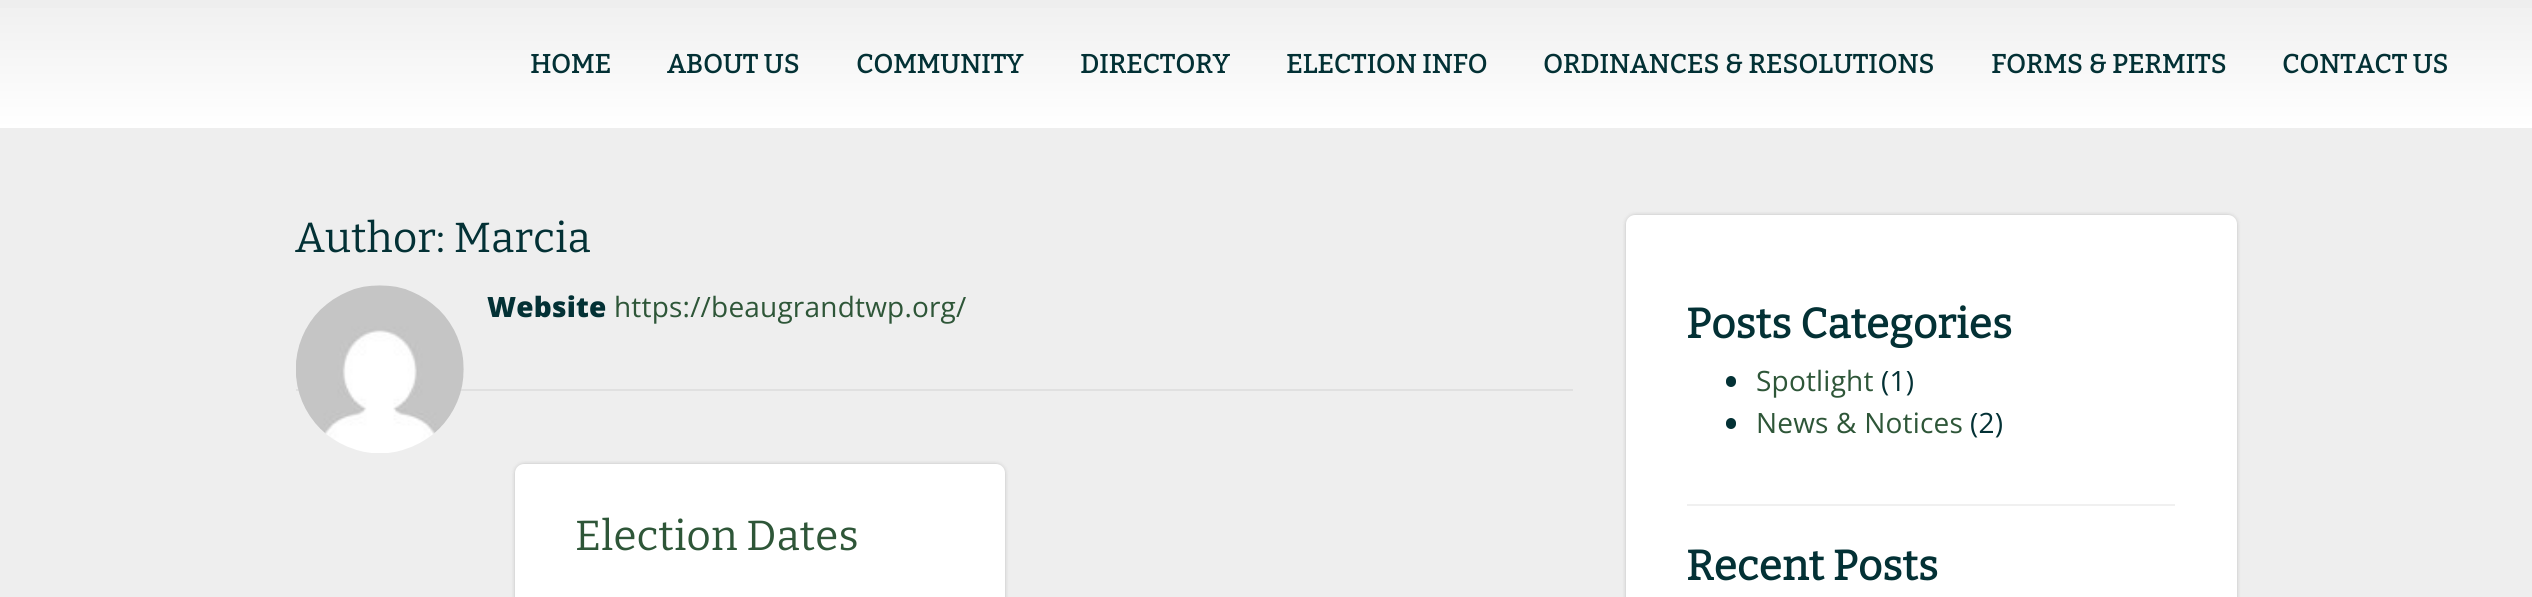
import math
import cairo

surface = cairo.ImageSurface(cairo.FORMAT_RGB24, 2532, 597)
ctx = cairo.Context(surface)
options = cairo.FontOptions()
options.set_hint_metrics(cairo.HINT_METRICS_OFF)
options.set_hint_style(cairo.HINT_STYLE_NONE)
ctx.set_font_options(options)
ctx.set_miter_limit(4)


def set_color(code):
    ctx.set_source_rgb(*(v / 255 for v in bytes.fromhex(code[-6:])))


def draw_spaced(x, y, s, letter, word):
    ctx.move_to(x, y)
    for ch in s:
        ctx.show_text(ch)
        ctx.rel_move_to(letter + word * (ch == ' '), 0)


def fill_rect(x, y, w, h, color):
    set_color(color)
    ctx.rectangle(x, y, w, h)
    ctx.fill()


def rounded_rect(x, y, w, h, r):
    ctx.new_sub_path()
    for i, (u, v) in enumerate([(x + w - r, y + h - r), (x + r, y + h - r), (x + r, y + r), (x + w - r, y + r)]):
        ctx.arc(u, v, r, i * math.pi / 2, (i + 1) * math.pi / 2)
    ctx.close_path()


def draw_shadow(x, y, w, h, r, blur, alpha):
    ctx.push_group_with_content(cairo.CONTENT_ALPHA)
    ctx.set_operator(cairo.OPERATOR_SOURCE)
    for i in range(15, -16, -2):
        e = blur * i / 6
        if min(w, h) + 2 * e > 0:
            ctx.set_source_rgba(0, 0, 0, alpha * math.erfc((i - 1) / 8.5) / 2)
            rounded_rect(x - e, y - e, w + 2 * e, h + 2 * e, max(0, min(r + e + blur * .6, min(w, h) / 2 + e)))
            ctx.fill()
    ctx.mask(ctx.pop_group())


def draw_image(path, x, y, w, h):
    ctx.save()
    ctx.set_source_surface(cairo.ImageSurface.create_from_png(path), x, y)
    ctx.rectangle(x, y, w, h)
    ctx.fill()
    ctx.restore()


set_color("#eeeeee")
ctx.paint()
gradient = cairo.LinearGradient(1266, 0, 1266, 128)
gradient.add_color_stop_rgba(0.03, 0.941, 0.941, 0.941, 1)
gradient.add_color_stop_rgba(1, 1, 1, 1, 1)
ctx.set_source(gradient)
ctx.rectangle(0, 8, 2532, 120)
ctx.fill()
ctx.select_font_face("Bitter", cairo.FONT_SLANT_NORMAL, cairo.FONT_WEIGHT_BOLD)
ctx.set_font_size(26.25)
set_color("#033135")
draw_spaced(530, 73, "HOME", 0.2, 0)
draw_spaced(667, 73, "ABOUT US", 0.2, 0)
draw_spaced(856, 73, "COMMUNITY", 0.2, 0)
draw_spaced(1080, 73, "DIRECTORY", 0.2, 0)
draw_spaced(1286, 73, "ELECTION INFO", 0.2, 0)
draw_spaced(1543, 73, "ORDINANCES & RESOLUTIONS", 0.2, 0)
draw_spaced(1991, 73, "FORMS & PERMITS", 0.2, 0)
draw_spaced(2282, 73, "CONTACT US", 0.2, 0)
fill_rect(296, 389, 1277, 2, "#e0e0e0")
ctx.select_font_face("Bitter Thin")
ctx.set_font_size(42)
set_color("#033135")
draw_spaced(295, 252, "Author: Marcia", 0.2, 0)
draw_image("assets/img1.png", 296, 285, 168, 168)
ctx.select_font_face("Open Sans ExtraBold")
ctx.set_font_size(28)
draw_spaced(487, 317, "Website", 0.2, 0)
ctx.select_font_face("Open Sans")
set_color("#2e5638")
draw_spaced(614, 317, "https://beaugrandtwp.org/", 0.2, 0)
set_color("#000000")
draw_shadow(515, 464, 490, 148, 9, 2, 0.2)
set_color("#ffffff")
rounded_rect(515, 464, 490, 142, 9)
ctx.fill()
ctx.select_font_face("Bitter Thin")
ctx.set_font_size(42)
set_color("#2e5638")
draw_spaced(575, 550, "Election Dates", 0.2, 0)
set_color("#000000")
draw_shadow(1626, 215, 611, 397, 9, 2, 0.2)
set_color("#ffffff")
rounded_rect(1626, 215, 611, 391, 9)
ctx.fill()
fill_rect(1687, 504, 488, 2, "#f0f0f0")
ctx.select_font_face("Bitter", cairo.FONT_SLANT_NORMAL, cairo.FONT_WEIGHT_BOLD)
set_color("#033135")
draw_spaced(1686, 338, "Posts Categories", 0.2, 0)
rounded_rect(1726, 376, 10, 11, 5)
ctx.fill()
ctx.select_font_face("Open Sans")
ctx.set_font_size(28)
set_color("#2e5638")
draw_spaced(1756, 391, "Spotlight", 0.2, 0)
set_color("#033135")
draw_spaced(1881, 391, "(1)", 0.2, 0)
rounded_rect(1726, 418, 10, 11, 5)
ctx.fill()
set_color("#2e5638")
draw_spaced(1756, 433, "News & Notices", 0.2, 0)
set_color("#033135")
draw_spaced(1970, 433, "(2)", 0.2, 0)
ctx.select_font_face("Bitter", cairo.FONT_SLANT_NORMAL, cairo.FONT_WEIGHT_BOLD)
ctx.set_font_size(42)
draw_spaced(1686, 580, "Recent Posts", 0.2, 0)
surface.write_to_png("output.png")
